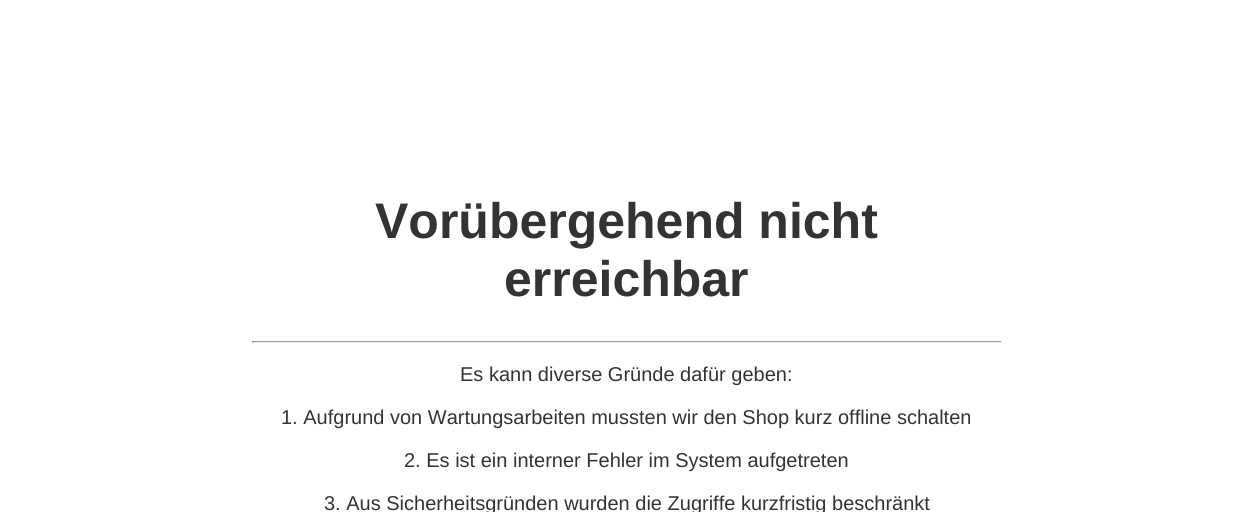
import math
import cairo

surface = cairo.ImageSurface(cairo.FORMAT_RGB24, 1253, 512)
ctx = cairo.Context(surface)
options = cairo.FontOptions()
options.set_hint_metrics(cairo.HINT_METRICS_OFF)
options.set_hint_style(cairo.HINT_STYLE_NONE)
ctx.set_font_options(options)
ctx.set_miter_limit(4)


def set_color(code):
    ctx.set_source_rgb(*(v / 255 for v in bytes.fromhex(code[-6:])))


def draw_text(x, y, s, family, size, color, bold=False, italic=False):
    ctx.select_font_face(family, cairo.FONT_SLANT_ITALIC if italic else cairo.FONT_SLANT_NORMAL, cairo.FONT_WEIGHT_BOLD if bold else cairo.FONT_WEIGHT_NORMAL)
    ctx.set_font_size(size)
    set_color(color)
    ctx.move_to(x, y)
    ctx.show_text(s)


def fill_rect(x, y, w, h, color):
    set_color(color)
    ctx.rectangle(x, y, w, h)
    ctx.fill()


set_color("#ffffff")
ctx.paint()
draw_text(375, 238, "Vorübergehend nicht", "Liberation Sans", 50, "#333333", bold=True)
draw_text(504, 296, "erreichbar", "Liberation Sans", 50, "#333333", bold=True)
fill_rect(252, 341, 750, 1, "#9f9f9f")
fill_rect(1001, 341, 1, 2, "#eeeeee")
fill_rect(252, 342, 750, 1, "#eeeeee")
fill_rect(252, 341, 1, 2, "#9f9f9f")
draw_text(460, 381, "Es kann diverse Gründe dafür geben:", "Liberation Sans", 20, "#333333")
draw_text(281, 424, "1. Aufgrund von Wartungsarbeiten mussten wir den Shop kurz offline schalten", "Liberation Sans", 20, "#333333")
draw_text(404, 467, "2. Es ist ein interner Fehler im System aufgetreten", "Liberation Sans", 20, "#333333")
draw_text(324, 510, "3. Aus Sicherheitsgründen wurden die Zugriffe kurzfristig beschränkt", "Liberation Sans", 20, "#333333")
surface.write_to_png("output.png")
